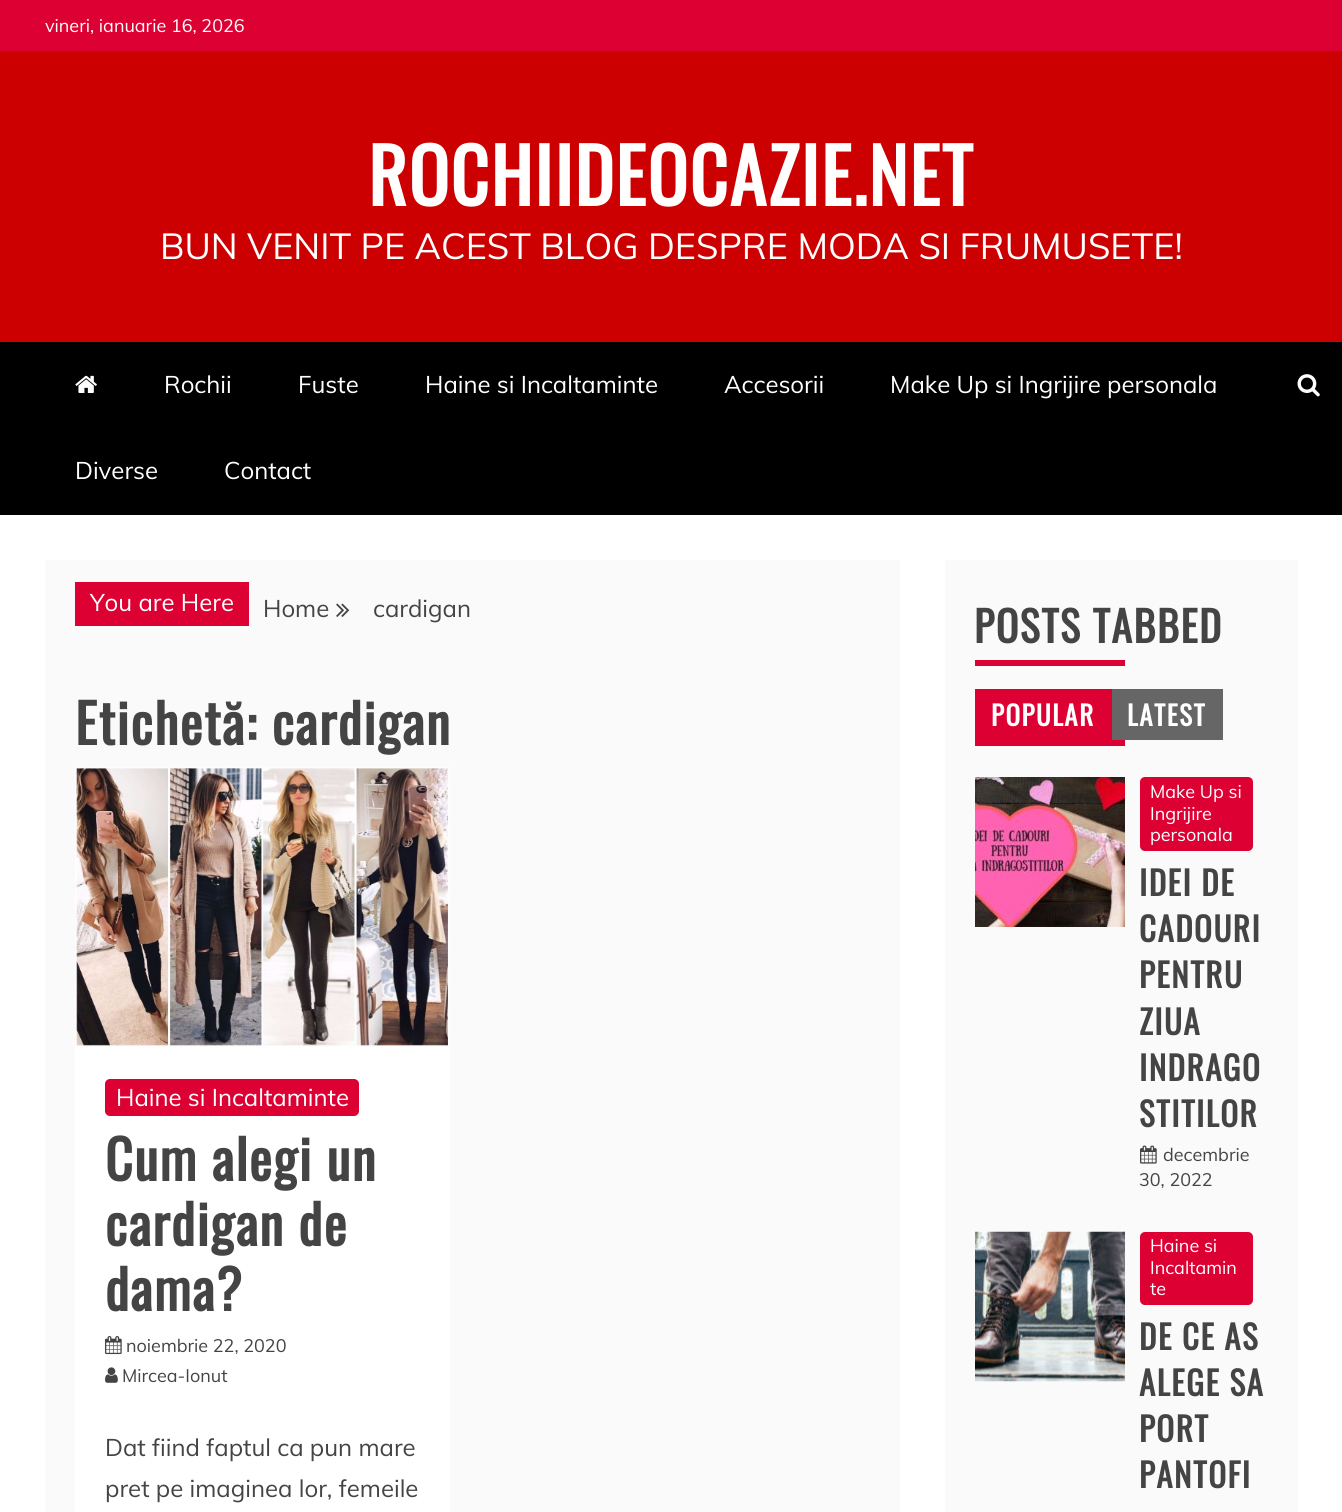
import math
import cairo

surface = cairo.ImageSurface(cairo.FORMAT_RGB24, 1342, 1512)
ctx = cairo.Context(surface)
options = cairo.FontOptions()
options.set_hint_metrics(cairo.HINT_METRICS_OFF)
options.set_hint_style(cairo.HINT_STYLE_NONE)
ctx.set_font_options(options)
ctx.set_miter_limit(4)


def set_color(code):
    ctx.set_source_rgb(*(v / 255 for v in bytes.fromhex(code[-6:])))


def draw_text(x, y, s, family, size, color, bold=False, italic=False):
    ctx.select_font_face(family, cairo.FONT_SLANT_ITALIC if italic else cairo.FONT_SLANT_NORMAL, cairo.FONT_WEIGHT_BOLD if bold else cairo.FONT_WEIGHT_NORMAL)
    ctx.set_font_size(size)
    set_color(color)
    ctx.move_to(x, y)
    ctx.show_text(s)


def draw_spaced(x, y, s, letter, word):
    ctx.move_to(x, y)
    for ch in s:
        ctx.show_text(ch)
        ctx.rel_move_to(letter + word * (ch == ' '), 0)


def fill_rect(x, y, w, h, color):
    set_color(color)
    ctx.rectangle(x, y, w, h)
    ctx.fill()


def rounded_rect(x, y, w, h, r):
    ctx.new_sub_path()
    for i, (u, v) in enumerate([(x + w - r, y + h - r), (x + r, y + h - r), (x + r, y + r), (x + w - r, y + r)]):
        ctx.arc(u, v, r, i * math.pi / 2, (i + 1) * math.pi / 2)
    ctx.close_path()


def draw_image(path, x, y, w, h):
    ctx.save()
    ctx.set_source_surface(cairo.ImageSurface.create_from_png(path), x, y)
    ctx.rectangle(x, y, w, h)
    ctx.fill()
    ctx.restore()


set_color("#ffffff")
ctx.paint()
fill_rect(0, 0, 1342, 51, "#dd0033")
draw_text(45, 32, "vineri, ianuarie 16, 2026", "Muli", 18, "#ffffff")
fill_rect(0, 51, 1342, 291, "#cc0000")
ctx.select_font_face("Oswald", cairo.FONT_SLANT_NORMAL, cairo.FONT_WEIGHT_BOLD)
ctx.set_font_size(75)
set_color("#ffffff")
draw_spaced(368, 206, "ROCHIIDEOCAZIE.NET", 1.5, 0)
draw_text(160, 259, "BUN VENIT PE ACEST BLOG DESPRE MODA SI FRUMUSETE!", "Muli", 36, "#ffffff")
fill_rect(0, 342, 1342, 173, "#000000")
draw_image("assets/img1.png", 75, 375, 22, 18)
draw_text(164, 393, "Rochii", "Muli", 24, "#ffffff")
draw_text(298, 393, "Fuste", "Muli", 24, "#ffffff")
draw_text(425, 393, "Haine si Incaltaminte", "Muli", 24, "#ffffff")
draw_text(724, 393, "Accesorii", "Muli", 24, "#ffffff")
draw_text(890, 393, "Make Up si Ingrijire personala", "Muli", 24, "#ffffff")
draw_text(75, 479, "Diverse", "Muli", 24, "#ffffff")
draw_text(224, 479, "Contact", "Muli", 24, "#ffffff")
draw_image("assets/img2.png", 1297, 374, 23, 23)
fill_rect(45, 560, 855, 952, "#fafafa")
fill_rect(75, 582, 174, 44, "#dd0033")
draw_text(90, 611, "You are Here", "Muli", 24, "#ffffff")
draw_text(263, 617, "Home", "Muli", 24, "#444444")
draw_image("assets/img3.png", 336, 603, 14, 14)
draw_text(373, 617, "cardigan", "Muli", 24, "#444444")
ctx.select_font_face("Oswald", cairo.FONT_SLANT_NORMAL, cairo.FONT_WEIGHT_BOLD)
ctx.set_font_size(54)
draw_spaced(75, 745, "Etichetă: cardigan", 1.5, 0)
fill_rect(75, 1047, 375, 465, "#ffffff")
draw_image("assets/img4.png", 75, 767, 375, 280)
set_color("#dd0033")
rounded_rect(105, 1079, 254, 37, 5)
ctx.fill()
draw_text(116, 1106, "Haine si Incaltaminte", "Muli", 24, "#ffffff")
ctx.select_font_face("Oswald", cairo.FONT_SLANT_NORMAL, cairo.FONT_WEIGHT_BOLD)
ctx.set_font_size(54)
set_color("#444444")
draw_spaced(105, 1181, "Cum alegi un", 1.5, 0)
draw_spaced(105, 1246, "cardigan de", 1.5, 0)
draw_spaced(105, 1311, "dama?", 1.5, 0)
draw_image("assets/img5.png", 105, 1336, 17, 19)
draw_text(126, 1352, "noiembrie 22, 2020", "Muli", 18, "#444444")
draw_image("assets/img6.png", 105, 1367, 13, 16)
draw_text(122, 1382, "Mircea-Ionut", "Muli", 18, "#444444")
draw_text(105, 1456, "Dat fiind faptul ca pun mare", "Muli", 24, "#444444")
draw_text(105, 1497, "pret pe imaginea lor, femeile", "Muli", 24, "#444444")
fill_rect(945, 560, 353, 952, "#fafafa")
ctx.select_font_face("Oswald", cairo.FONT_SLANT_NORMAL, cairo.FONT_WEIGHT_BOLD)
ctx.set_font_size(42)
set_color("#444444")
draw_spaced(974, 643, "POSTS TABBED", 1.5, 0)
fill_rect(975, 660, 150, 6, "#dd0033")
fill_rect(975, 689, 137, 51, "#dd0033")
ctx.set_font_size(27)
set_color("#ffffff")
draw_spaced(991, 726, "POPULAR", 1.5, 0)
fill_rect(1112, 689, 111, 51, "#666666")
set_color("#ffffff")
draw_spaced(1127, 726, "LATEST", 1.5, 0)
fill_rect(975, 740, 150, 6, "#dd0033")
draw_image("assets/img7.png", 975, 777, 150, 150)
rounded_rect(1140, 777, 113, 74, 5)
ctx.fill()
draw_text(1150, 798, "Make Up si", "Muli", 18, "#ffffff")
draw_text(1150, 820, "Ingrijire", "Muli", 18, "#ffffff")
draw_text(1150, 841, "personala", "Muli", 18, "#ffffff")
ctx.select_font_face("Oswald", cairo.FONT_SLANT_NORMAL, cairo.FONT_WEIGHT_BOLD)
ctx.set_font_size(33)
set_color("#444444")
draw_spaced(1139, 896, "IDEI DE", 1.5, 0)
draw_spaced(1139, 942, "CADOURI", 1.5, 0)
draw_spaced(1139, 988, "PENTRU", 1.5, 0)
draw_spaced(1139, 1035, "ZIUA", 1.5, 0)
draw_spaced(1139, 1081, "INDRAGO", 1.5, 0)
draw_spaced(1139, 1127, "STITILOR", 1.5, 0)
draw_image("assets/img8.png", 1140, 1145, 17, 19)
draw_text(1163, 1161, "decembrie", "Muli", 18, "#444444")
draw_text(1139, 1186, "30, 2022", "Muli", 18, "#444444")
draw_image("assets/img9.png", 975, 1231, 150, 151)
set_color("#dd0033")
rounded_rect(1140, 1232, 113, 73, 5)
ctx.fill()
draw_text(1150, 1252, "Haine si", "Muli", 18, "#ffffff")
draw_text(1150, 1274, "Incaltamin", "Muli", 18, "#ffffff")
draw_text(1150, 1295, "te", "Muli", 18, "#ffffff")
ctx.select_font_face("Oswald", cairo.FONT_SLANT_NORMAL, cairo.FONT_WEIGHT_BOLD)
ctx.set_font_size(33)
set_color("#444444")
draw_spaced(1139, 1350, "DE CE AS", 1.5, 0)
draw_spaced(1139, 1396, "ALEGE SA", 1.5, 0)
draw_spaced(1139, 1442, "PORT", 1.5, 0)
draw_spaced(1139, 1488, "PANTOFI", 1.5, 0)
surface.write_to_png("output.png")
